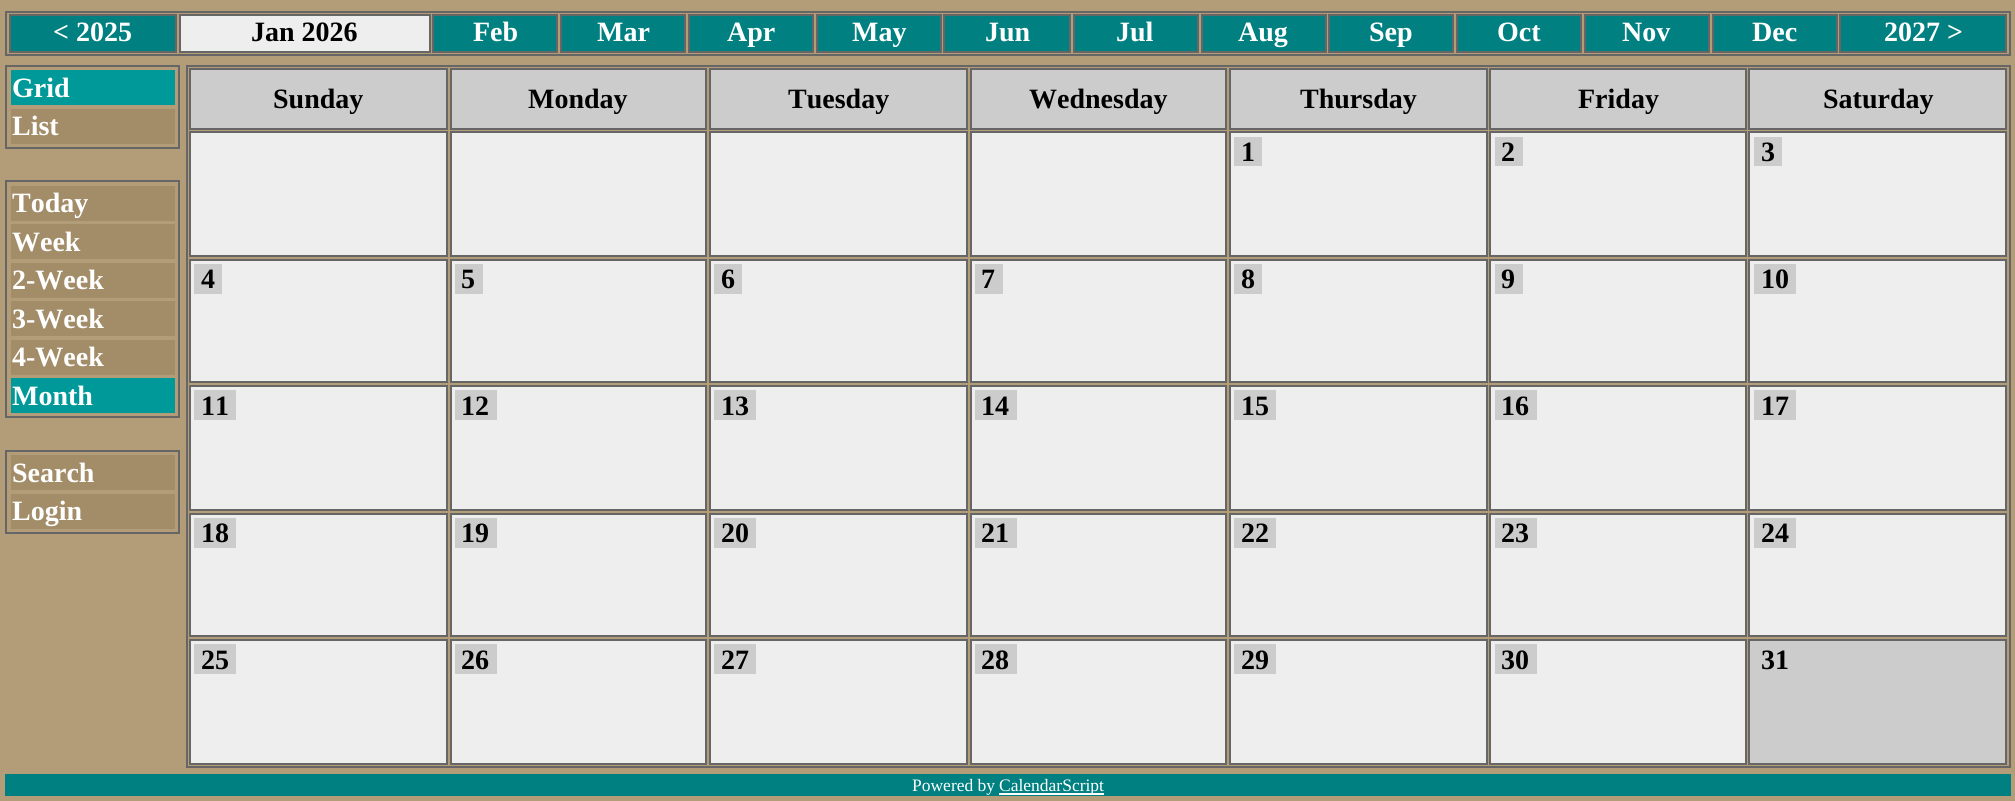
import math
import cairo

surface = cairo.ImageSurface(cairo.FORMAT_RGB24, 2015, 801)
ctx = cairo.Context(surface)
options = cairo.FontOptions()
options.set_hint_metrics(cairo.HINT_METRICS_OFF)
options.set_hint_style(cairo.HINT_STYLE_NONE)
ctx.set_font_options(options)
ctx.set_miter_limit(4)


def set_color(code):
    ctx.set_source_rgb(*(v / 255 for v in bytes.fromhex(code[-6:])))


def draw_text(x, y, s, family, size, color, bold=False, italic=False):
    ctx.select_font_face(family, cairo.FONT_SLANT_ITALIC if italic else cairo.FONT_SLANT_NORMAL, cairo.FONT_WEIGHT_BOLD if bold else cairo.FONT_WEIGHT_NORMAL)
    ctx.set_font_size(size)
    set_color(color)
    ctx.move_to(x, y)
    ctx.show_text(s)


def fill_rect(x, y, w, h, color):
    set_color(color)
    ctx.rectangle(x, y, w, h)
    ctx.fill()


set_color("#b29d78")
ctx.paint()
ctx.rectangle(6, 12, 2004, 43)
set_color("#666666")
ctx.stroke()
set_color("#008080")
ctx.rectangle(10, 15, 166, 37)
ctx.fill_preserve()
set_color("#666666")
ctx.stroke()
draw_text(53, 41, "< 2025", "Liberation Serif", 28, "#ffffff", bold=True)
set_color("#eeeeee")
ctx.rectangle(180, 15, 250, 37)
ctx.fill_preserve()
set_color("#666666")
ctx.stroke()
draw_text(251, 41, "Jan 2026", "Liberation Serif", 28, "#000000", bold=True)
set_color("#008080")
ctx.rectangle(433, 15, 124, 37)
ctx.fill_preserve()
set_color("#666666")
ctx.stroke()
draw_text(473, 41, "Feb", "Liberation Serif", 28, "#ffffff", bold=True)
set_color("#008080")
ctx.rectangle(561, 15, 124, 37)
ctx.fill_preserve()
set_color("#666666")
ctx.stroke()
draw_text(597, 41, "Mar", "Liberation Serif", 28, "#ffffff", bold=True)
set_color("#008080")
ctx.rectangle(689, 15, 124, 37)
ctx.fill_preserve()
set_color("#666666")
ctx.stroke()
draw_text(727, 41, "Apr", "Liberation Serif", 28, "#ffffff", bold=True)
set_color("#008080")
ctx.rectangle(817, 15, 124, 37)
ctx.fill_preserve()
set_color("#666666")
ctx.stroke()
draw_text(852, 41, "May", "Liberation Serif", 28, "#ffffff", bold=True)
set_color("#008080")
ctx.rectangle(944, 15, 126, 37)
ctx.fill_preserve()
set_color("#666666")
ctx.stroke()
draw_text(985, 41, "Jun", "Liberation Serif", 28, "#ffffff", bold=True)
set_color("#008080")
ctx.rectangle(1074, 15, 124, 37)
ctx.fill_preserve()
set_color("#666666")
ctx.stroke()
draw_text(1116, 41, "Jul", "Liberation Serif", 28, "#ffffff", bold=True)
set_color("#008080")
ctx.rectangle(1202, 15, 124, 37)
ctx.fill_preserve()
set_color("#666666")
ctx.stroke()
draw_text(1238, 41, "Aug", "Liberation Serif", 28, "#ffffff", bold=True)
set_color("#008080")
ctx.rectangle(1329, 15, 124, 37)
ctx.fill_preserve()
set_color("#666666")
ctx.stroke()
draw_text(1369, 41, "Sep", "Liberation Serif", 28, "#ffffff", bold=True)
set_color("#008080")
ctx.rectangle(1457, 15, 124, 37)
ctx.fill_preserve()
set_color("#666666")
ctx.stroke()
draw_text(1497, 41, "Oct", "Liberation Serif", 28, "#ffffff", bold=True)
set_color("#008080")
ctx.rectangle(1585, 15, 124, 37)
ctx.fill_preserve()
set_color("#666666")
ctx.stroke()
draw_text(1622, 41, "Nov", "Liberation Serif", 28, "#ffffff", bold=True)
set_color("#008080")
ctx.rectangle(1713, 15, 124, 37)
ctx.fill_preserve()
set_color("#666666")
ctx.stroke()
draw_text(1752, 41, "Dec", "Liberation Serif", 28, "#ffffff", bold=True)
set_color("#008080")
ctx.rectangle(1840, 15, 166, 37)
ctx.fill_preserve()
set_color("#666666")
ctx.stroke()
draw_text(1884, 41, "2027 >", "Liberation Serif", 28, "#ffffff", bold=True)
ctx.rectangle(6, 66, 173, 82)
set_color("#666666")
ctx.stroke()
fill_rect(11, 70, 164, 35, "#009999")
draw_text(12, 97, "Grid", "Liberation Serif", 28, "#ffffff", bold=True)
fill_rect(11, 109, 164, 35, "#a28d68")
draw_text(12, 135, "List", "Liberation Serif", 28, "#ffffff", bold=True)
ctx.rectangle(6, 181, 173, 236)
set_color("#666666")
ctx.stroke()
fill_rect(11, 186, 164, 35, "#a28d68")
draw_text(12, 212, "Today", "Liberation Serif", 28, "#ffffff", bold=True)
fill_rect(11, 224, 164, 35, "#a28d68")
draw_text(12, 251, "Week", "Liberation Serif", 28, "#ffffff", bold=True)
fill_rect(11, 263, 164, 35, "#a28d68")
draw_text(12, 289, "2-Week", "Liberation Serif", 28, "#ffffff", bold=True)
fill_rect(11, 301, 164, 35, "#a28d68")
draw_text(12, 328, "3-Week", "Liberation Serif", 28, "#ffffff", bold=True)
fill_rect(11, 340, 164, 35, "#a28d68")
draw_text(12, 366, "4-Week", "Liberation Serif", 28, "#ffffff", bold=True)
fill_rect(11, 378, 164, 35, "#009999")
draw_text(12, 405, "Month", "Liberation Serif", 28, "#ffffff", bold=True)
ctx.rectangle(6, 451, 173, 82)
set_color("#666666")
ctx.stroke()
fill_rect(11, 455, 164, 35, "#a28d68")
draw_text(12, 482, "Search", "Liberation Serif", 28, "#ffffff", bold=True)
fill_rect(11, 494, 164, 35, "#a28d68")
draw_text(12, 520, "Login", "Liberation Serif", 28, "#ffffff", bold=True)
ctx.rectangle(187, 66, 1823, 701)
set_color("#666666")
ctx.stroke()
set_color("#cccccc")
ctx.rectangle(190, 69, 257, 60)
ctx.fill_preserve()
set_color("#666666")
ctx.stroke()
draw_text(273, 108, "Sunday", "Liberation Serif", 28, "#000000", bold=True)
set_color("#cccccc")
ctx.rectangle(451, 69, 255, 60)
ctx.fill_preserve()
set_color("#666666")
ctx.stroke()
draw_text(528, 108, "Monday", "Liberation Serif", 28, "#000000", bold=True)
set_color("#cccccc")
ctx.rectangle(710, 69, 257, 60)
ctx.fill_preserve()
set_color("#666666")
ctx.stroke()
draw_text(788, 108, "Tuesday", "Liberation Serif", 28, "#000000", bold=True)
set_color("#cccccc")
ctx.rectangle(971, 69, 255, 60)
ctx.fill_preserve()
set_color("#666666")
ctx.stroke()
draw_text(1029, 108, "Wednesday", "Liberation Serif", 28, "#000000", bold=True)
set_color("#cccccc")
ctx.rectangle(1230, 69, 257, 60)
ctx.fill_preserve()
set_color("#666666")
ctx.stroke()
draw_text(1300, 108, "Thursday", "Liberation Serif", 28, "#000000", bold=True)
set_color("#cccccc")
ctx.rectangle(1490, 69, 256, 60)
ctx.fill_preserve()
set_color("#666666")
ctx.stroke()
draw_text(1578, 108, "Friday", "Liberation Serif", 28, "#000000", bold=True)
set_color("#cccccc")
ctx.rectangle(1749, 69, 257, 60)
ctx.fill_preserve()
set_color("#666666")
ctx.stroke()
draw_text(1823, 108, "Saturday", "Liberation Serif", 28, "#000000", bold=True)
set_color("#eeeeee")
ctx.rectangle(190, 132, 257, 124)
ctx.fill_preserve()
set_color("#666666")
ctx.stroke()
set_color("#eeeeee")
ctx.rectangle(451, 132, 255, 124)
ctx.fill_preserve()
set_color("#666666")
ctx.stroke()
set_color("#eeeeee")
ctx.rectangle(710, 132, 257, 124)
ctx.fill_preserve()
set_color("#666666")
ctx.stroke()
set_color("#eeeeee")
ctx.rectangle(971, 132, 255, 124)
ctx.fill_preserve()
set_color("#666666")
ctx.stroke()
set_color("#eeeeee")
ctx.rectangle(1230, 132, 257, 124)
ctx.fill_preserve()
set_color("#666666")
ctx.stroke()
fill_rect(1234, 137, 28, 29, "#cccccc")
draw_text(1241, 161, "1", "Liberation Serif", 28, "#000000", bold=True)
set_color("#eeeeee")
ctx.rectangle(1490, 132, 256, 124)
ctx.fill_preserve()
set_color("#666666")
ctx.stroke()
fill_rect(1495, 137, 28, 29, "#cccccc")
draw_text(1501, 161, "2", "Liberation Serif", 28, "#000000", bold=True)
set_color("#eeeeee")
ctx.rectangle(1749, 132, 257, 124)
ctx.fill_preserve()
set_color("#666666")
ctx.stroke()
fill_rect(1754, 137, 28, 29, "#cccccc")
draw_text(1761, 161, "3", "Liberation Serif", 28, "#000000", bold=True)
set_color("#eeeeee")
ctx.rectangle(190, 260, 257, 122)
ctx.fill_preserve()
set_color("#666666")
ctx.stroke()
fill_rect(194, 264, 28, 30, "#cccccc")
draw_text(201, 288, "4", "Liberation Serif", 28, "#000000", bold=True)
set_color("#eeeeee")
ctx.rectangle(451, 260, 255, 122)
ctx.fill_preserve()
set_color("#666666")
ctx.stroke()
fill_rect(455, 264, 28, 30, "#cccccc")
draw_text(461, 288, "5", "Liberation Serif", 28, "#000000", bold=True)
set_color("#eeeeee")
ctx.rectangle(710, 260, 257, 122)
ctx.fill_preserve()
set_color("#666666")
ctx.stroke()
fill_rect(714, 264, 28, 30, "#cccccc")
draw_text(721, 288, "6", "Liberation Serif", 28, "#000000", bold=True)
set_color("#eeeeee")
ctx.rectangle(971, 260, 255, 122)
ctx.fill_preserve()
set_color("#666666")
ctx.stroke()
fill_rect(975, 264, 28, 30, "#cccccc")
draw_text(981, 288, "7", "Liberation Serif", 28, "#000000", bold=True)
set_color("#eeeeee")
ctx.rectangle(1230, 260, 257, 122)
ctx.fill_preserve()
set_color("#666666")
ctx.stroke()
fill_rect(1234, 264, 28, 30, "#cccccc")
draw_text(1241, 288, "8", "Liberation Serif", 28, "#000000", bold=True)
set_color("#eeeeee")
ctx.rectangle(1490, 260, 256, 122)
ctx.fill_preserve()
set_color("#666666")
ctx.stroke()
fill_rect(1495, 264, 28, 30, "#cccccc")
draw_text(1501, 288, "9", "Liberation Serif", 28, "#000000", bold=True)
set_color("#eeeeee")
ctx.rectangle(1749, 260, 257, 122)
ctx.fill_preserve()
set_color("#666666")
ctx.stroke()
fill_rect(1754, 264, 42, 30, "#cccccc")
draw_text(1761, 288, "10", "Liberation Serif", 28, "#000000", bold=True)
set_color("#eeeeee")
ctx.rectangle(190, 386, 257, 124)
ctx.fill_preserve()
set_color("#666666")
ctx.stroke()
fill_rect(194, 390, 42, 30, "#cccccc")
draw_text(201, 415, "11", "Liberation Serif", 28, "#000000", bold=True)
set_color("#eeeeee")
ctx.rectangle(451, 386, 255, 124)
ctx.fill_preserve()
set_color("#666666")
ctx.stroke()
fill_rect(455, 390, 42, 30, "#cccccc")
draw_text(461, 415, "12", "Liberation Serif", 28, "#000000", bold=True)
set_color("#eeeeee")
ctx.rectangle(710, 386, 257, 124)
ctx.fill_preserve()
set_color("#666666")
ctx.stroke()
fill_rect(714, 390, 42, 30, "#cccccc")
draw_text(721, 415, "13", "Liberation Serif", 28, "#000000", bold=True)
set_color("#eeeeee")
ctx.rectangle(971, 386, 255, 124)
ctx.fill_preserve()
set_color("#666666")
ctx.stroke()
fill_rect(975, 390, 42, 30, "#cccccc")
draw_text(981, 415, "14", "Liberation Serif", 28, "#000000", bold=True)
set_color("#eeeeee")
ctx.rectangle(1230, 386, 257, 124)
ctx.fill_preserve()
set_color("#666666")
ctx.stroke()
fill_rect(1234, 390, 42, 30, "#cccccc")
draw_text(1241, 415, "15", "Liberation Serif", 28, "#000000", bold=True)
set_color("#eeeeee")
ctx.rectangle(1490, 386, 256, 124)
ctx.fill_preserve()
set_color("#666666")
ctx.stroke()
fill_rect(1495, 390, 42, 30, "#cccccc")
draw_text(1501, 415, "16", "Liberation Serif", 28, "#000000", bold=True)
set_color("#eeeeee")
ctx.rectangle(1749, 386, 257, 124)
ctx.fill_preserve()
set_color("#666666")
ctx.stroke()
fill_rect(1754, 390, 42, 30, "#cccccc")
draw_text(1761, 415, "17", "Liberation Serif", 28, "#000000", bold=True)
set_color("#eeeeee")
ctx.rectangle(190, 514, 257, 122)
ctx.fill_preserve()
set_color("#666666")
ctx.stroke()
fill_rect(194, 518, 42, 30, "#cccccc")
draw_text(201, 542, "18", "Liberation Serif", 28, "#000000", bold=True)
set_color("#eeeeee")
ctx.rectangle(451, 514, 255, 122)
ctx.fill_preserve()
set_color("#666666")
ctx.stroke()
fill_rect(455, 518, 42, 30, "#cccccc")
draw_text(461, 542, "19", "Liberation Serif", 28, "#000000", bold=True)
set_color("#eeeeee")
ctx.rectangle(710, 514, 257, 122)
ctx.fill_preserve()
set_color("#666666")
ctx.stroke()
fill_rect(714, 518, 42, 30, "#cccccc")
draw_text(721, 542, "20", "Liberation Serif", 28, "#000000", bold=True)
set_color("#eeeeee")
ctx.rectangle(971, 514, 255, 122)
ctx.fill_preserve()
set_color("#666666")
ctx.stroke()
fill_rect(975, 518, 42, 30, "#cccccc")
draw_text(981, 542, "21", "Liberation Serif", 28, "#000000", bold=True)
set_color("#eeeeee")
ctx.rectangle(1230, 514, 257, 122)
ctx.fill_preserve()
set_color("#666666")
ctx.stroke()
fill_rect(1234, 518, 42, 30, "#cccccc")
draw_text(1241, 542, "22", "Liberation Serif", 28, "#000000", bold=True)
set_color("#eeeeee")
ctx.rectangle(1490, 514, 256, 122)
ctx.fill_preserve()
set_color("#666666")
ctx.stroke()
fill_rect(1495, 518, 42, 30, "#cccccc")
draw_text(1501, 542, "23", "Liberation Serif", 28, "#000000", bold=True)
set_color("#eeeeee")
ctx.rectangle(1749, 514, 257, 122)
ctx.fill_preserve()
set_color("#666666")
ctx.stroke()
fill_rect(1754, 518, 42, 30, "#cccccc")
draw_text(1761, 542, "24", "Liberation Serif", 28, "#000000", bold=True)
set_color("#eeeeee")
ctx.rectangle(190, 640, 257, 124)
ctx.fill_preserve()
set_color("#666666")
ctx.stroke()
fill_rect(194, 644, 42, 30, "#cccccc")
draw_text(201, 669, "25", "Liberation Serif", 28, "#000000", bold=True)
set_color("#eeeeee")
ctx.rectangle(451, 640, 255, 124)
ctx.fill_preserve()
set_color("#666666")
ctx.stroke()
fill_rect(455, 644, 42, 30, "#cccccc")
draw_text(461, 669, "26", "Liberation Serif", 28, "#000000", bold=True)
set_color("#eeeeee")
ctx.rectangle(710, 640, 257, 124)
ctx.fill_preserve()
set_color("#666666")
ctx.stroke()
fill_rect(714, 644, 42, 30, "#cccccc")
draw_text(721, 669, "27", "Liberation Serif", 28, "#000000", bold=True)
set_color("#eeeeee")
ctx.rectangle(971, 640, 255, 124)
ctx.fill_preserve()
set_color("#666666")
ctx.stroke()
fill_rect(975, 644, 42, 30, "#cccccc")
draw_text(981, 669, "28", "Liberation Serif", 28, "#000000", bold=True)
set_color("#eeeeee")
ctx.rectangle(1230, 640, 257, 124)
ctx.fill_preserve()
set_color("#666666")
ctx.stroke()
fill_rect(1234, 644, 42, 30, "#cccccc")
draw_text(1241, 669, "29", "Liberation Serif", 28, "#000000", bold=True)
set_color("#eeeeee")
ctx.rectangle(1490, 640, 256, 124)
ctx.fill_preserve()
set_color("#666666")
ctx.stroke()
fill_rect(1495, 644, 42, 30, "#cccccc")
draw_text(1501, 669, "30", "Liberation Serif", 28, "#000000", bold=True)
set_color("#cccccc")
ctx.rectangle(1749, 640, 257, 124)
ctx.fill_preserve()
set_color("#666666")
ctx.stroke()
draw_text(1761, 669, "31", "Liberation Serif", 28, "#000000", bold=True)
fill_rect(5, 774, 2006, 22, "#008080")
draw_text(912, 791, "Powered by", "Liberation Serif", 17.5, "#ffffff")
fill_rect(999, 793, 105, 2, "#ffffff")
draw_text(999, 791, "CalendarScript", "Liberation Serif", 17.5, "#ffffff")
surface.write_to_png("output.png")
